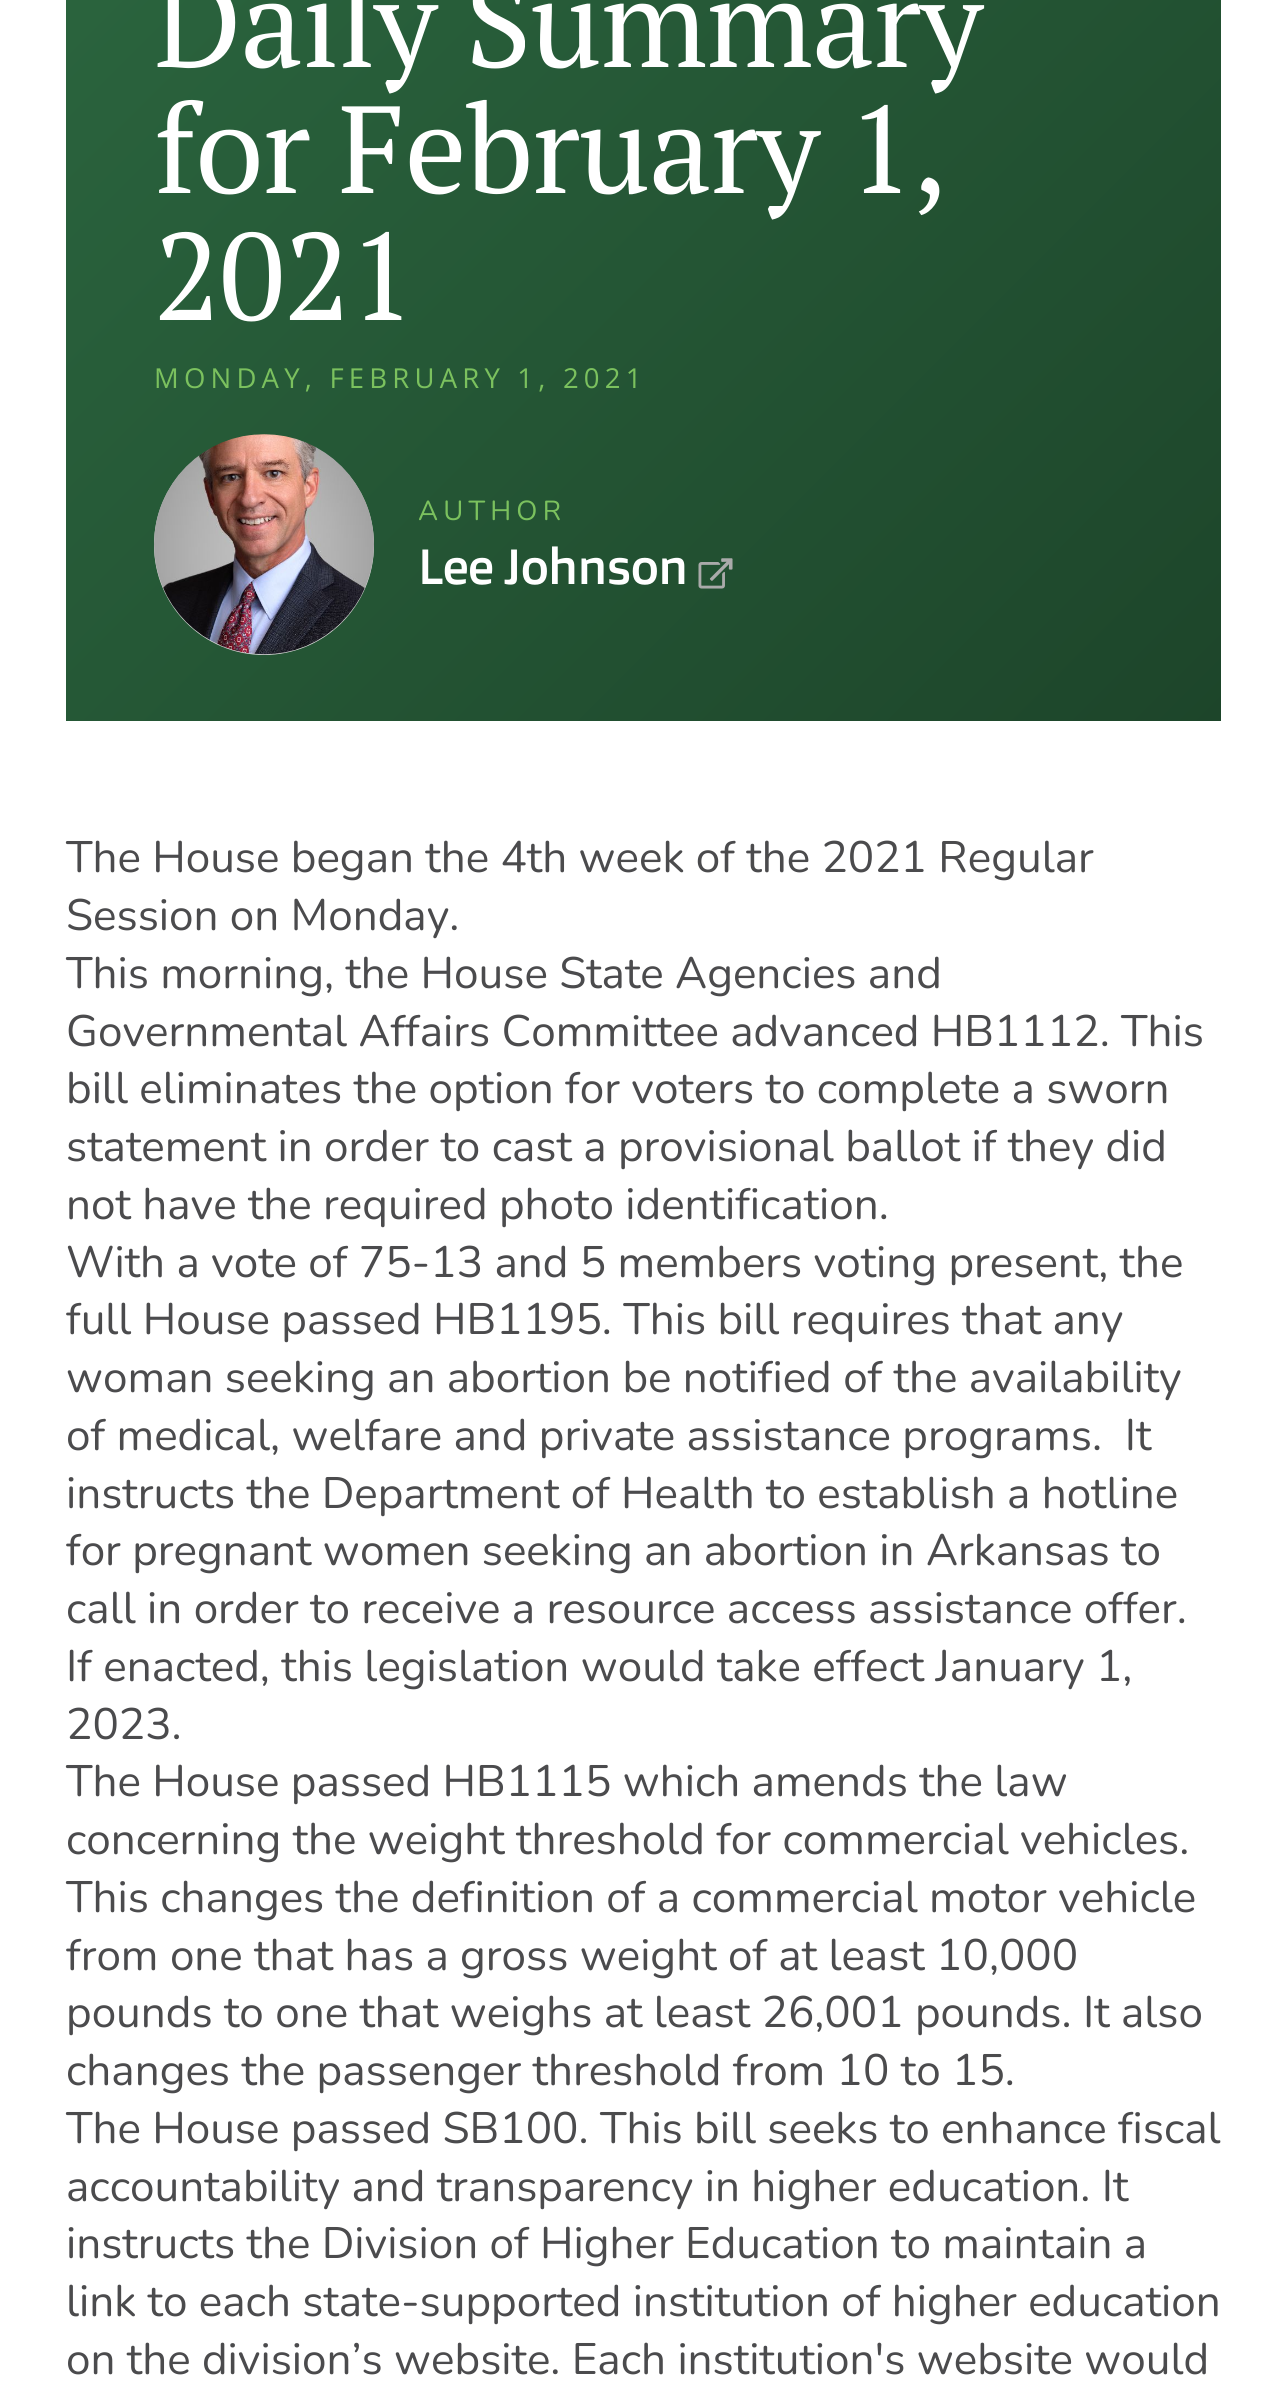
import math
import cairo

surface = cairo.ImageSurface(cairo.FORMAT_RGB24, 1285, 2394)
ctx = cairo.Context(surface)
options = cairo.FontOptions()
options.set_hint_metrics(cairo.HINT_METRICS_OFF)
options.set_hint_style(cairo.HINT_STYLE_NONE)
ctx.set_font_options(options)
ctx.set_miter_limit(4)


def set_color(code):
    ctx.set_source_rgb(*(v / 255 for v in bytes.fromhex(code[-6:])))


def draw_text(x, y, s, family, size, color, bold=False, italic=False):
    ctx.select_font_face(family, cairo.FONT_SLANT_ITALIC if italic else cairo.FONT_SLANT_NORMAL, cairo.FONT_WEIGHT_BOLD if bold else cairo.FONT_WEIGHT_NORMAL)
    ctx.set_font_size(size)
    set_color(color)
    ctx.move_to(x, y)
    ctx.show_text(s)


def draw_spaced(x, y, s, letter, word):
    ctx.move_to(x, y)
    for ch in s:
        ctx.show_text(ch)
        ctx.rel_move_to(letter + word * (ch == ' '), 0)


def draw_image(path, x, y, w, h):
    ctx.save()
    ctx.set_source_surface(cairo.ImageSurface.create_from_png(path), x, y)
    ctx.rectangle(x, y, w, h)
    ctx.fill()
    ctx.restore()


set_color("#ffffff")
ctx.paint()
gradient = cairo.LinearGradient(135, -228, 1152, 789)
gradient.add_color_stop_rgba(0, 0.169, 0.4, 0.247, 1)
gradient.add_color_stop_rgba(1, 0.114, 0.271, 0.165, 1)
ctx.set_source(gradient)
ctx.rectangle(66, 0, 1155, 721)
ctx.fill()
ctx.select_font_face("PT Serif")
ctx.set_font_size(123.75)
set_color("#ffffff")
draw_spaced(154, 67, "Daily Summary", -1, 0)
draw_spaced(154, 193, "for February 1,", -1, 0)
draw_spaced(154, 320, "2021", -1, 0)
ctx.select_font_face("Open Sans")
ctx.set_font_size(27.5)
set_color("#7bc15e")
draw_spaced(154, 388, "MONDAY, FEBRUARY 1, 2021", 5.2, 0)
set_color("#d8d8d8")
ctx.new_path()
ctx.arc(264, 545, 110, 0, 2 * math.pi)
ctx.fill()
draw_image("assets/img1.png", 154, 434, 220, 221)
ctx.select_font_face("Nunito")
set_color("#7bc15e")
draw_spaced(418, 520, "AUTHOR", 5.2, 0)
ctx.select_font_face("Doppio One")
ctx.set_font_size(49.5)
set_color("#ffffff")
draw_spaced(418, 584, "Lee Johnson", -1, 0)
draw_image("assets/img2.png", 698, 558, 35, 31)
draw_text(66, 872, "The House began the 4th week of the 2021 Regular", "Nunito", 44, "#4b4b4d")
draw_text(66, 930, "Session on Monday.", "Nunito", 44, "#4b4b4d")
draw_text(66, 988, "This morning, the House State Agencies and", "Nunito", 44, "#4b4b4d")
draw_text(66, 1046, "Governmental Affairs Committee advanced HB1112. This", "Nunito", 44, "#4b4b4d")
draw_text(66, 1103, "bill eliminates the option for voters to complete a sworn", "Nunito", 44, "#4b4b4d")
draw_text(66, 1161, "statement in order to cast a provisional ballot if they did", "Nunito", 44, "#4b4b4d")
draw_text(66, 1219, "not have the required photo identification.", "Nunito", 44, "#4b4b4d")
draw_text(66, 1277, "With a vote of 75-13 and 5 members voting present, the", "Nunito", 44, "#4b4b4d")
draw_text(66, 1334, "full House passed HB1195. This bill requires that any", "Nunito", 44, "#4b4b4d")
draw_text(66, 1392, "woman seeking an abortion be notified of the availability", "Nunito", 44, "#4b4b4d")
draw_text(66, 1450, "of medical, welfare and private assistance programs.  It", "Nunito", 44, "#4b4b4d")
draw_text(66, 1508, "instructs the Department of Health to establish a hotline", "Nunito", 44, "#4b4b4d")
draw_text(66, 1565, "for pregnant women seeking an abortion in Arkansas to", "Nunito", 44, "#4b4b4d")
draw_text(66, 1623, "call in order to receive a resource access assistance offer.", "Nunito", 44, "#4b4b4d")
draw_text(66, 1681, "If enacted, this legislation would take effect January 1,", "Nunito", 44, "#4b4b4d")
draw_text(66, 1739, "2023.", "Nunito", 44, "#4b4b4d")
draw_text(66, 1796, "The House passed HB1115 which amends the law", "Nunito", 44, "#4b4b4d")
draw_text(66, 1854, "concerning the weight threshold for commercial vehicles.", "Nunito", 44, "#4b4b4d")
draw_text(66, 1912, "This changes the definition of a commercial motor vehicle", "Nunito", 44, "#4b4b4d")
draw_text(66, 1970, "from one that has a gross weight of at least 10,000", "Nunito", 44, "#4b4b4d")
draw_text(66, 2027, "pounds to one that weighs at least 26,001 pounds. It also", "Nunito", 44, "#4b4b4d")
draw_text(66, 2085, "changes the passenger threshold from 10 to 15.", "Nunito", 44, "#4b4b4d")
draw_text(66, 2143, "The House passed SB100. This bill seeks to enhance fiscal", "Nunito", 44, "#4b4b4d")
draw_text(66, 2201, "accountability and transparency in higher education. It", "Nunito", 44, "#4b4b4d")
draw_text(66, 2258, "instructs the Division of Higher Education to maintain a", "Nunito", 44, "#4b4b4d")
draw_text(66, 2316, "link to each state-supported institution of higher education", "Nunito", 44, "#4b4b4d")
draw_text(66, 2374, "on the division’s website. Each institution's website would", "Nunito", 44, "#4b4b4d")
surface.write_to_png("output.png")
